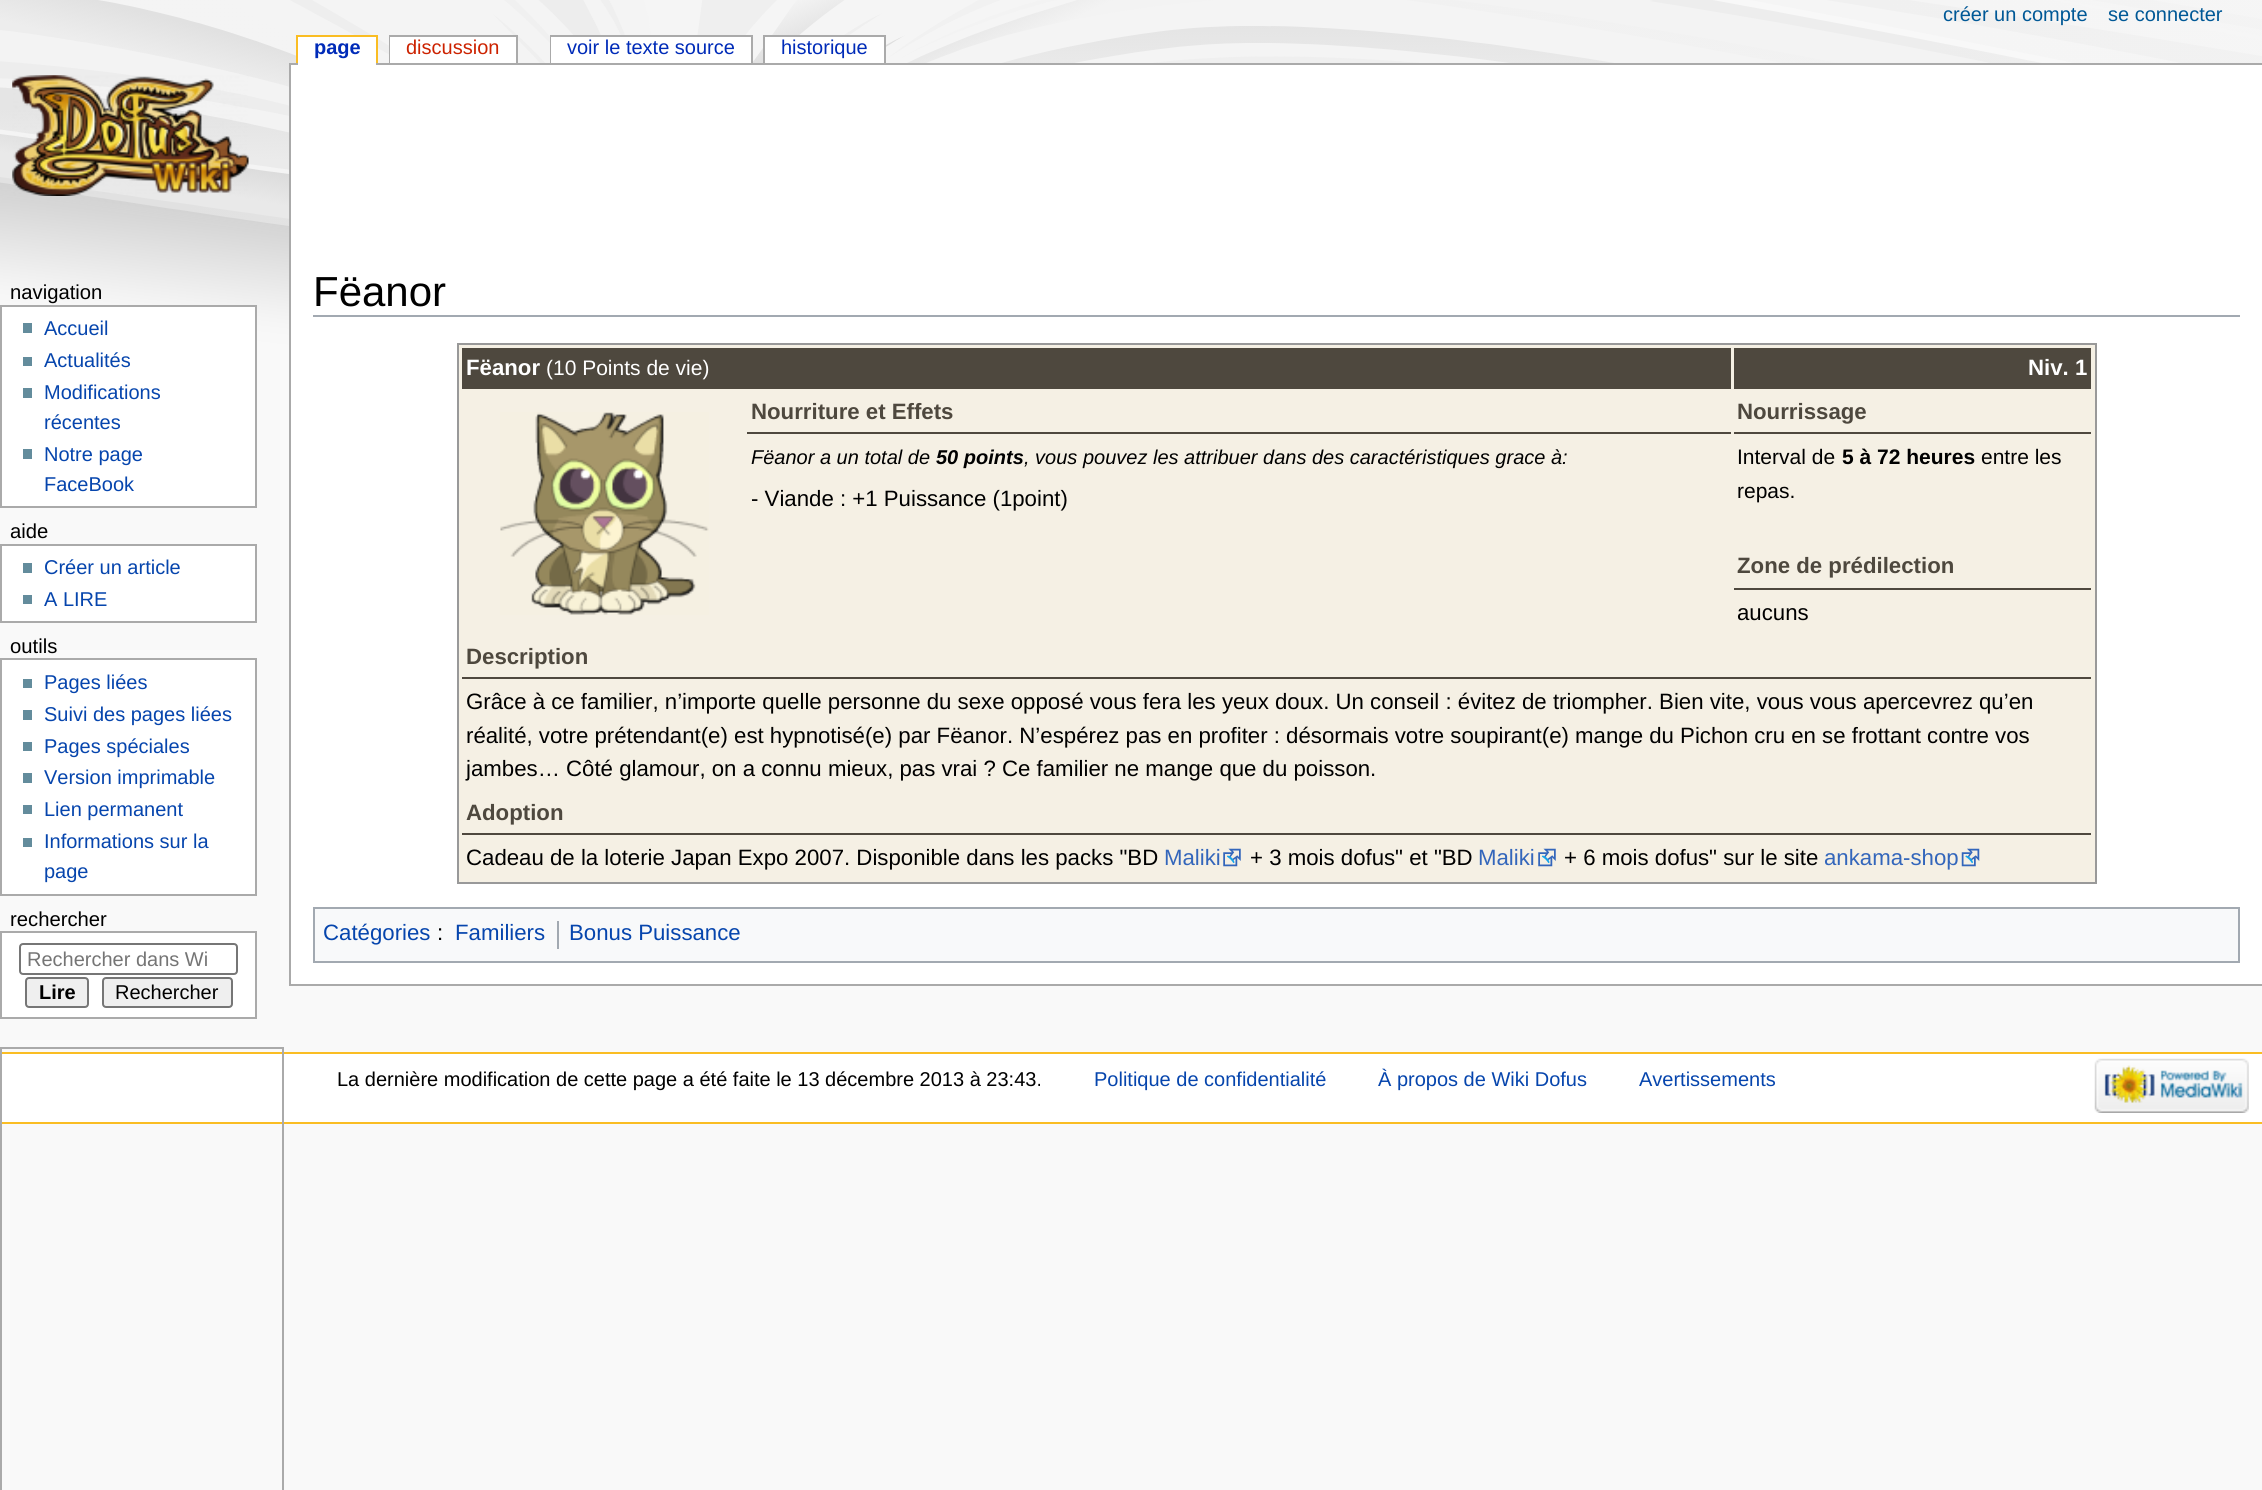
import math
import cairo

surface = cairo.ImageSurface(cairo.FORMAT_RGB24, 2262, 1490)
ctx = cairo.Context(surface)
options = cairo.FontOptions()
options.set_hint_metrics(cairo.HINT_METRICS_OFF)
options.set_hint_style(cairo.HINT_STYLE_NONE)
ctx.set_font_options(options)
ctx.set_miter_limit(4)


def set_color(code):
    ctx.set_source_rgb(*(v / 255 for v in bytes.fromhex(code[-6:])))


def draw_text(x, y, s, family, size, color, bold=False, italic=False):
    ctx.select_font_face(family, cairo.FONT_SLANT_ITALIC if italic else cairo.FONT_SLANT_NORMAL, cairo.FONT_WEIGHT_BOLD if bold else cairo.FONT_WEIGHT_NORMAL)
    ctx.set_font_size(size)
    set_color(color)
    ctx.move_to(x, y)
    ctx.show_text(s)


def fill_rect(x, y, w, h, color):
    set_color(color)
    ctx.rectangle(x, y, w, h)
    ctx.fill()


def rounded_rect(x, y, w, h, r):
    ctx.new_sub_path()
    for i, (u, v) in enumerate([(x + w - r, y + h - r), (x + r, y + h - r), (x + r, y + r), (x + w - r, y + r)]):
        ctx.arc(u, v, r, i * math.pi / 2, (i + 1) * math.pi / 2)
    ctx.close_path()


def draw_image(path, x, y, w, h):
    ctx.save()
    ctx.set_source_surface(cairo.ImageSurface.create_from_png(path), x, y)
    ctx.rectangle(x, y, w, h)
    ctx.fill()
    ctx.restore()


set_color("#f9f9f9")
ctx.paint()
draw_image("assets/img1.png", 0, 0, 2262, 367)
draw_text(1943, 21, "créer un compte", "Liberation Sans", 20, "#005896")
draw_text(2108, 21, "se connecter", "Liberation Sans", 20, "#005896")
fill_rect(289, 63, 1973, 2, "#aaaaaa")
fill_rect(298, 37, 78, 28, "#ffffff")
draw_text(314, 54, "page", "Liberation Sans", 20, "#002bb8", bold=True)
fill_rect(296, 35, 82, 2, "#fabd23")
fill_rect(376, 35, 2, 28, "#fabd23")
fill_rect(296, 35, 2, 28, "#fabd23")
fill_rect(389, 35, 129, 2, "#aaaaaa")
fill_rect(389, 35, 2, 28, "#aaaaaa")
fill_rect(390, 37, 126, 26, "#ffffff")
draw_text(406, 54, "discussion", "Liberation Sans", 20, "#cc2200")
fill_rect(516, 35, 2, 28, "#aaaaaa")
fill_rect(550, 35, 203, 2, "#aaaaaa")
fill_rect(550, 35, 2, 28, "#aaaaaa")
fill_rect(551, 37, 200, 26, "#ffffff")
draw_text(567, 54, "voir le texte source", "Liberation Sans", 20, "#002bb8")
fill_rect(751, 35, 2, 28, "#aaaaaa")
fill_rect(765, 37, 119, 26, "#ffffff")
draw_text(781, 54, "historique", "Liberation Sans", 20, "#002bb8")
fill_rect(763, 35, 123, 2, "#aaaaaa")
fill_rect(884, 35, 2, 28, "#aaaaaa")
fill_rect(763, 35, 2, 28, "#aaaaaa")
draw_image("assets/img2.png", 12, 75, 237, 121)
draw_text(10, 299, "navigation", "Liberation Sans", 20.25, "#000000")
set_color("#ffffff")
ctx.rectangle(1, 306, 255, 201)
ctx.fill_preserve()
set_color("#aaaaaa")
ctx.stroke()
fill_rect(23, 323, 9, 10, "#638c9c")
draw_text(44, 335, "Accueil", "Liberation Sans", 20, "#0645ad")
fill_rect(23, 357, 9, 9, "#638c9c")
draw_text(44, 367, "Actualités", "Liberation Sans", 20, "#0645ad")
fill_rect(23, 388, 9, 10, "#638c9c")
draw_text(44, 399, "Modifications", "Liberation Sans", 20, "#0645ad")
draw_text(44, 429, "récentes", "Liberation Sans", 20, "#0645ad")
fill_rect(23, 449, 9, 10, "#638c9c")
draw_text(44, 461, "Notre page", "Liberation Sans", 20, "#0645ad")
draw_text(44, 491, "FaceBook", "Liberation Sans", 20, "#0645ad")
draw_text(10, 538, "aide", "Liberation Sans", 20.25, "#000000")
set_color("#ffffff")
ctx.rectangle(1, 545, 255, 77)
ctx.fill_preserve()
set_color("#aaaaaa")
ctx.stroke()
fill_rect(23, 563, 9, 10, "#638c9c")
draw_text(44, 574, "Créer un article", "Liberation Sans", 20, "#0645ad")
fill_rect(23, 595, 9, 9, "#638c9c")
draw_text(44, 606, "A LIRE", "Liberation Sans", 20, "#0645ad")
draw_text(10, 653, "outils", "Liberation Sans", 20.25, "#000000")
set_color("#ffffff")
ctx.rectangle(1, 659, 255, 236)
ctx.fill_preserve()
set_color("#aaaaaa")
ctx.stroke()
fill_rect(23, 679, 9, 9, "#638c9c")
draw_text(44, 689, "Pages liées", "Liberation Sans", 20, "#0645ad")
fill_rect(23, 710, 9, 10, "#638c9c")
draw_text(44, 721, "Suivi des pages liées", "Liberation Sans", 20, "#0645ad")
fill_rect(23, 742, 9, 9, "#638c9c")
draw_text(44, 753, "Pages spéciales", "Liberation Sans", 20, "#0645ad")
fill_rect(23, 773, 9, 10, "#638c9c")
draw_text(44, 784, "Version imprimable", "Liberation Sans", 20, "#0645ad")
fill_rect(23, 805, 9, 9, "#638c9c")
draw_text(44, 816, "Lien permanent", "Liberation Sans", 20, "#0645ad")
fill_rect(23, 838, 9, 9, "#638c9c")
draw_text(44, 848, "Informations sur la", "Liberation Sans", 20, "#0645ad")
draw_text(44, 878, "page", "Liberation Sans", 20, "#0645ad")
draw_text(10, 926, "rechercher", "Liberation Sans", 20.25, "#000000")
set_color("#ffffff")
ctx.rectangle(1, 932, 255, 86)
ctx.fill_preserve()
set_color("#aaaaaa")
ctx.stroke()
rounded_rect(20, 944, 217, 30, 3)
set_color("#767676")
ctx.stroke()
draw_text(27, 966, "Rechercher dans Wi", "Liberation Sans", 20, "#757575")
set_color("#efefef")
rounded_rect(26, 978, 62, 29, 3)
ctx.fill_preserve()
set_color("#767676")
ctx.stroke()
draw_text(39, 999, "Lire", "Liberation Sans", 20, "#000000", bold=True)
set_color("#efefef")
rounded_rect(103, 978, 129, 29, 3)
ctx.fill_preserve()
set_color("#767676")
ctx.stroke()
draw_text(115, 999, "Rechercher", "Liberation Sans", 20, "#000000")
fill_rect(2, 1054, 2260, 68, "#ffffff")
fill_rect(0, 1052, 2262, 2, "#fabd23")
fill_rect(0, 1122, 2262, 2, "#fabd23")
ctx.rectangle(1, 1048, 282, 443)
set_color("#aaaaaa")
ctx.stroke()
draw_text(337, 1086, "La dernière modification de cette page a été faite le 13 décembre 2013 à 23:43.", "Liberation Sans", 20, "#000000")
draw_text(1094, 1086, "Politique de confidentialité", "Liberation Sans", 20, "#0645ad")
draw_text(1378, 1086, "À propos de Wiki Dofus", "Liberation Sans", 20, "#0645ad")
draw_text(1639, 1086, "Avertissements", "Liberation Sans", 20, "#0645ad")
draw_image("assets/img3.png", 2094, 1058, 155, 55)
fill_rect(291, 65, 1971, 919, "#ffffff")
fill_rect(289, 984, 1973, 2, "#aaaaaa")
fill_rect(289, 63, 2, 922, "#aaaaaa")
fill_rect(313, 315, 1927, 2, "#a2a9b1")
draw_text(313, 306, "Fëanor", "Liberation Sans", 42, "#000000")
set_color("#f5f0e4")
ctx.rectangle(458, 344, 1638, 539)
ctx.fill_preserve()
set_color("#999999")
ctx.stroke()
fill_rect(462, 348, 1269, 41, "#4e483e")
draw_text(466, 375, "Fëanor", "Liberation Sans", 22.22, "#ffffff", bold=True)
draw_text(546, 375, "(10 Points de vie)", "Liberation Sans", 21, "#ffffff")
fill_rect(1734, 348, 357, 41, "#4e483e")
draw_text(2028, 375, "Niv. 1", "Liberation Sans", 22.22, "#ffffff", bold=True)
draw_image("assets/img4.png", 500, 412, 209, 203)
fill_rect(747, 432, 984, 2, "#4e483e")
draw_text(751, 419, "Nourriture et Effets", "Liberation Sans", 22.22, "#4e483e", bold=True)
fill_rect(1734, 432, 357, 2, "#4e483e")
draw_text(1737, 419, "Nourrissage", "Liberation Sans", 22.22, "#4e483e", bold=True)
draw_text(751, 464, "Fëanor a un total de", "Liberation Sans", 20, "#000000", italic=True)
draw_text(936, 464, "50 points", "Liberation Sans", 20, "#000000", bold=True, italic=True)
draw_text(1024, 464, ", vous pouvez les attribuer dans des caractéristiques grace à:", "Liberation Sans", 20, "#000000", italic=True)
draw_text(751, 506, "- Viande : +1 Puissance (1point)", "Liberation Sans", 22.22, "#000000")
draw_text(1737, 464, "Interval de", "Liberation Sans", 21, "#000000")
draw_text(1842, 464, "5 à 72 heures", "Liberation Sans", 21, "#000000", bold=True)
draw_text(1981, 464, "entre les", "Liberation Sans", 21, "#000000")
draw_text(1737, 498, "repas.", "Liberation Sans", 21, "#000000")
fill_rect(1734, 588, 357, 2, "#4e483e")
draw_text(1737, 573, "Zone de prédilection", "Liberation Sans", 22.22, "#4e483e", bold=True)
draw_text(1737, 620, "aucuns", "Liberation Sans", 22.22, "#000000")
fill_rect(462, 677, 1629, 2, "#4e483e")
draw_text(466, 664, "Description", "Liberation Sans", 22.22, "#4e483e", bold=True)
draw_text(466, 709, "Grâce à ce familier, n’importe quelle personne du sexe opposé vous fera les yeux doux. Un conseil : évitez de triompher. Bien vite, vous vous apercevrez qu’en", "Liberation Sans", 22.22, "#000000")
draw_text(466, 743, "réalité, votre prétendant(e) est hypnotisé(e) par Fëanor. N’espérez pas en profiter : désormais votre soupirant(e) mange du Pichon cru en se frottant contre vos", "Liberation Sans", 22.22, "#000000")
draw_text(466, 776, "jambes… Côté glamour, on a connu mieux, pas vrai ? Ce familier ne mange que du poisson.", "Liberation Sans", 22.22, "#000000")
fill_rect(462, 833, 1629, 2, "#4e483e")
draw_text(466, 820, "Adoption", "Liberation Sans", 22.22, "#4e483e", bold=True)
draw_text(466, 865, "Cadeau de la loterie Japan Expo 2007. Disponible dans les packs \"BD", "Liberation Sans", 22.22, "#000000")
draw_text(1164, 865, "Maliki", "Liberation Sans", 22.22, "#3366bb")
draw_image("assets/img5.png", 1223, 848, 18, 19)
draw_text(1250, 865, "+ 3 mois dofus\" et \"BD", "Liberation Sans", 22.22, "#000000")
draw_text(1478, 865, "Maliki", "Liberation Sans", 22.22, "#3366bb")
draw_image("assets/img5.png", 1538, 848, 18, 19)
draw_text(1564, 865, "+ 6 mois dofus\" sur le site", "Liberation Sans", 22.22, "#000000")
draw_text(1824, 865, "ankama-shop", "Liberation Sans", 22.22, "#3366bb")
draw_image("assets/img6.png", 1961, 848, 19, 19)
set_color("#f8f9fa")
ctx.rectangle(314, 908, 1925, 54)
ctx.fill_preserve()
set_color("#a2a9b1")
ctx.stroke()
draw_text(323, 940, "Catégories", "Liberation Sans", 22.22, "#0645ad")
draw_text(437, 940, ":", "Liberation Sans", 22.22, "#000000")
draw_text(455, 940, "Familiers", "Liberation Sans", 22.22, "#0645ad")
fill_rect(557, 921, 2, 28, "#a2a9b1")
draw_text(569, 940, "Bonus Puissance", "Liberation Sans", 22.22, "#0645ad")
surface.write_to_png("output.png")
